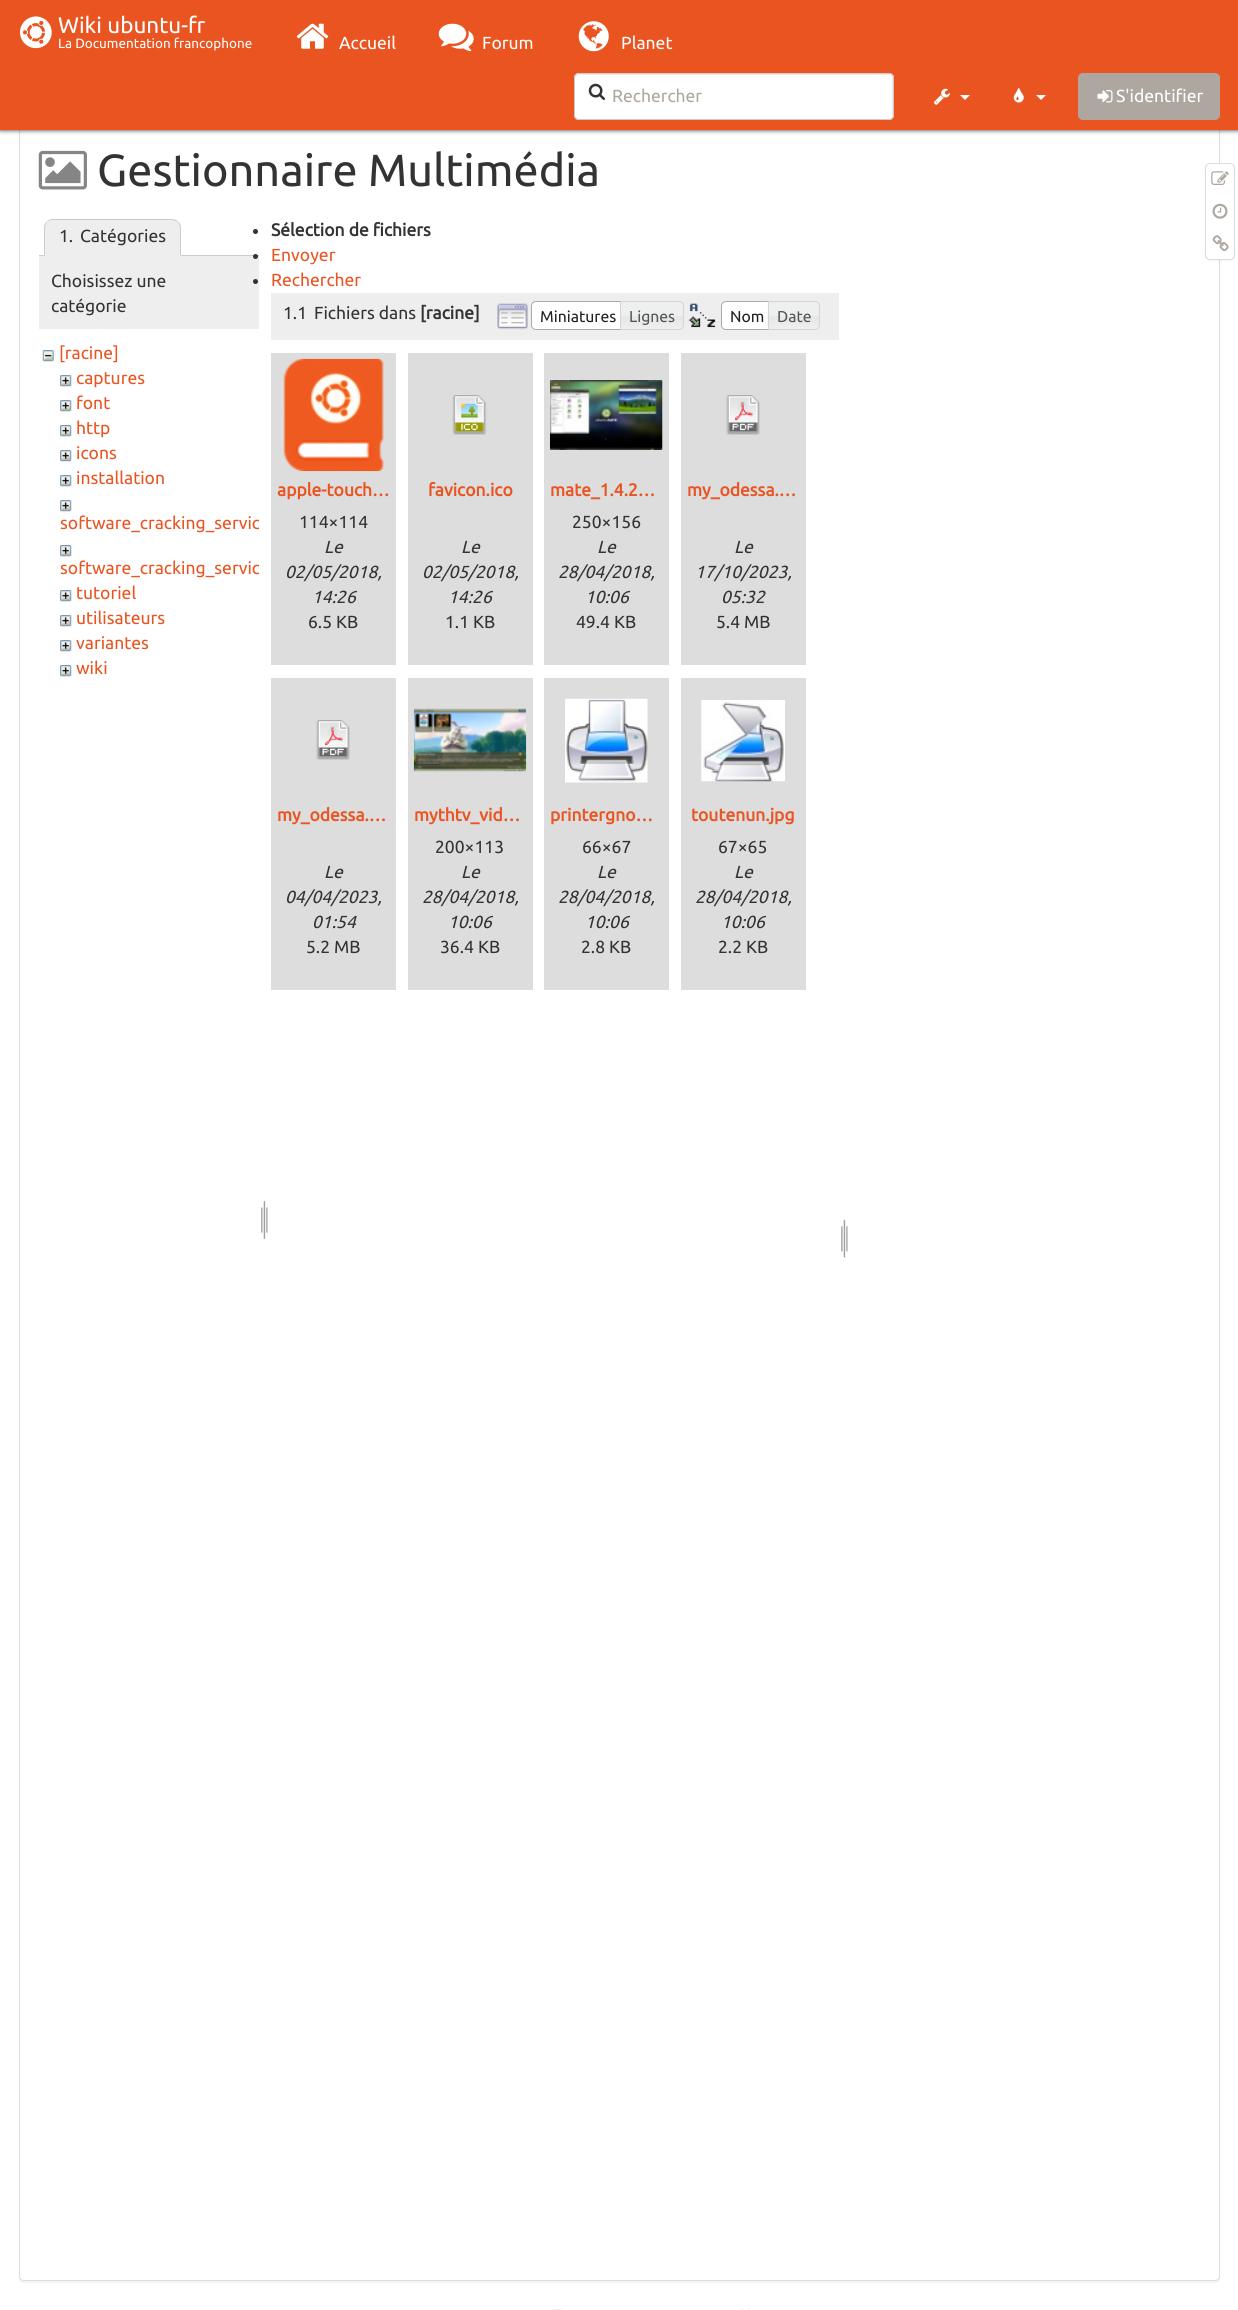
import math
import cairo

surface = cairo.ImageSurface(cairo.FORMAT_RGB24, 1238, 2310)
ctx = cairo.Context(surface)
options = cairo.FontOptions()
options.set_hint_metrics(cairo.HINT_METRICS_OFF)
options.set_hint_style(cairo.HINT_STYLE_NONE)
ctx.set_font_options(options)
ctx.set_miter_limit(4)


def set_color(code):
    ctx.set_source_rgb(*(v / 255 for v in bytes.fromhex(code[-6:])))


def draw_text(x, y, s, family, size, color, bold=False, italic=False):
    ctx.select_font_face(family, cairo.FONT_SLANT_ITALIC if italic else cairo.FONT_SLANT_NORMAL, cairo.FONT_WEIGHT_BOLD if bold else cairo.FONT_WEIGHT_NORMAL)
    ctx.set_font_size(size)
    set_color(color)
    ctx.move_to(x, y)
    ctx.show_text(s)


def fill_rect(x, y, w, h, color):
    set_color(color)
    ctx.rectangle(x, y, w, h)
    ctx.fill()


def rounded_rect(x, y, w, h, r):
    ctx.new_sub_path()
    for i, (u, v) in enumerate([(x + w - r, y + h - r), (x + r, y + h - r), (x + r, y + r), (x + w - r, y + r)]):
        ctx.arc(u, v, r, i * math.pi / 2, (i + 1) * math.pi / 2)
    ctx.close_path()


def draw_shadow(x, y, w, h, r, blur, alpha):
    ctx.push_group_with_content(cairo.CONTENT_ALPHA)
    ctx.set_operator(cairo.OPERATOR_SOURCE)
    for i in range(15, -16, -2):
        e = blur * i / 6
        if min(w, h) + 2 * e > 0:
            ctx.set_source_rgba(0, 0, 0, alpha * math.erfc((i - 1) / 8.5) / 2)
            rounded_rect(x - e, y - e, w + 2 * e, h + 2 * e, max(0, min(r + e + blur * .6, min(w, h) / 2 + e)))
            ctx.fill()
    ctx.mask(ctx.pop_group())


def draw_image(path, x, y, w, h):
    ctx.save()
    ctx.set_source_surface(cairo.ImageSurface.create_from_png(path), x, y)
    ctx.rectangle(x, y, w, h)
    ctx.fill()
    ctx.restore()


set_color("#ffffff")
ctx.paint()
set_color("#000000")
draw_shadow(19, 101, 1201, 2182, 5, 0.5, 0.05)
set_color("#ffffff")
rounded_rect(19.5, 100.5, 1200, 2180, 4.5)
ctx.fill_preserve()
set_color("#dddddd")
ctx.set_line_width(1)
ctx.stroke()
set_color("#333333")
draw_shadow(0, 0, 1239, 130, 0, 2.5, 1)
fill_rect(0, 0, 1238, 130, "#e95420")
draw_image("assets/img1.png", 20, 16, 32, 33)
draw_text(58, 33, "Wiki ubuntu-fr", "Ubuntu", 22.5, "#ffffff")
draw_text(58, 48, "La Documentation francophone", "Ubuntu", 13.5, "#ffffff")
draw_image("assets/img2.png", 296, 23, 33, 26)
draw_text(339, 49, "Accueil", "Ubuntu", 17.5, "#ffffff")
draw_image("assets/img3.png", 438, 23, 36, 29)
draw_text(482, 49, "Forum", "Ubuntu", 17.5, "#ffffff")
draw_image("assets/img4.png", 578, 21, 31, 31)
draw_text(621, 49, "Planet", "Ubuntu", 17.5, "#ffffff")
rounded_rect(574, 73, 320, 47, 5)
ctx.fill()
set_color("#ececec")
ctx.new_path()
ctx.move_to(579, 75)
ctx.line_to(889, 75)
ctx.curve_to(891, 75, 892, 77, 892, 79)
ctx.line_to(892, 118)
ctx.curve_to(892, 117, 893, 116, 893, 115)
ctx.line_to(893, 78)
ctx.curve_to(893, 76, 891, 74, 889, 74)
ctx.line_to(579, 74)
ctx.curve_to(577, 74, 575, 76, 575, 78)
ctx.line_to(575, 79)
ctx.curve_to(575, 77, 577, 75, 579, 75)
ctx.close_path()
ctx.fill()
rounded_rect(574.5, 73.5, 319, 46, 4.5)
set_color("#cccccc")
ctx.stroke()
draw_image("assets/img5.png", 588, 83, 17, 17)
draw_text(612, 102, "Rechercher", "Ubuntu", 17.5, "#aea79f")
draw_image("assets/img6.png", 934, 88, 16, 17)
set_color("#ffffff")
ctx.new_path()
ctx.move_to(960, 95)
ctx.line_to(970, 95)
ctx.line_to(965, 100)
ctx.close_path()
ctx.fill()
draw_image("assets/img7.png", 1013, 88, 11, 15)
ctx.new_path()
ctx.move_to(1036, 95)
ctx.line_to(1046, 95)
ctx.line_to(1041, 100)
ctx.close_path()
ctx.fill()
set_color("#aea79f")
rounded_rect(1078.5, 73.5, 141, 46, 4.5)
ctx.fill_preserve()
ctx.stroke()
draw_image("assets/img8.png", 1097, 90, 16, 13)
draw_text(1116, 102, "S'identifier", "Ubuntu", 17.5, "#ffffff")
draw_image("assets/img9.png", 38, 150, 49, 40)
draw_text(97, 186, "Gestionnaire Multimédia", "Ubuntu", 45, "#333333")
fill_rect(39, 255, 220, 1, "#cccccc")
set_color("#eeeeee")
ctx.new_path()
ctx.move_to(53, 219)
ctx.line_to(172, 219)
ctx.curve_to(177, 219, 181, 223, 181, 228)
ctx.line_to(181, 256)
ctx.line_to(44, 256)
ctx.line_to(44, 228)
ctx.curve_to(44, 223, 48, 219, 53, 219)
ctx.close_path()
ctx.fill()
set_color("#cccccc")
ctx.new_path()
ctx.move_to(52, 219)
ctx.curve_to(50, 219, 48, 220, 47, 222)
ctx.curve_to(48, 221, 50, 220, 52, 220)
ctx.line_to(172, 220)
ctx.curve_to(174, 220, 176, 221, 178, 222)
ctx.curve_to(177, 220, 174, 219, 172, 219)
ctx.close_path()
ctx.fill()
ctx.new_path()
ctx.move_to(181, 256)
ctx.line_to(181, 228)
ctx.curve_to(181, 225.5, 180, 223, 178.5, 221.5)
ctx.line_to(178, 222)
ctx.curve_to(179, 223.5, 180, 225.5, 180, 228)
ctx.line_to(180, 255)
ctx.close_path()
ctx.fill()
set_color("#eeeeee")
ctx.new_path()
ctx.move_to(181, 256)
ctx.line_to(180, 255)
ctx.line_to(45, 255)
ctx.line_to(44, 256)
ctx.close_path()
ctx.fill()
set_color("#cccccc")
ctx.new_path()
ctx.move_to(46.5, 221.5)
ctx.curve_to(45, 223, 44, 225.5, 44, 228)
ctx.line_to(44, 256)
ctx.line_to(45, 255)
ctx.line_to(45, 228)
ctx.curve_to(45, 225.5, 46, 223.5, 47, 222)
ctx.close_path()
ctx.fill()
draw_text(59, 242, "1.", "Ubuntu", 17.5, "#333333")
draw_text(80, 242, "Catégories", "Ubuntu", 17.5, "#333333")
fill_rect(39, 256, 220, 73, "#eeeeee")
draw_text(51, 287, "Choisissez une", "Ubuntu", 17.5, "#333333")
draw_text(51, 312, "catégorie", "Ubuntu", 17.5, "#333333")
draw_image("assets/img10.png", 42, 350, 12, 12)
draw_text(59, 359, "[racine]", "Ubuntu", 17.5, "#e95420")
draw_image("assets/img11.png", 60, 375, 12, 12)
draw_text(76, 384, "captures", "Ubuntu", 17.5, "#e95420")
draw_image("assets/img11.png", 60, 400, 12, 12)
draw_text(76, 409, "font", "Ubuntu", 17.5, "#e95420")
draw_image("assets/img11.png", 60, 425, 12, 12)
draw_text(76, 434, "http", "Ubuntu", 17.5, "#e95420")
draw_image("assets/img11.png", 60, 450, 12, 12)
draw_text(76, 459, "icons", "Ubuntu", 17.5, "#e95420")
draw_image("assets/img11.png", 60, 475, 12, 12)
draw_text(76, 484, "installation", "Ubuntu", 17.5, "#e95420")
draw_image("assets/img11.png", 60, 500, 12, 12)
ctx.save()
ctx.rectangle(60, 491, 199, 45)
ctx.clip()
draw_text(60, 529, "software_cracking_servic", "Ubuntu", 17.5, "#e95420")
ctx.restore()
draw_image("assets/img11.png", 60, 545, 12, 12)
ctx.save()
ctx.rectangle(60, 536, 199, 45)
ctx.clip()
draw_text(60, 574, "software_cracking_servic", "Ubuntu", 17.5, "#e95420")
ctx.restore()
draw_image("assets/img11.png", 60, 590, 12, 12)
draw_text(76, 599, "tutoriel", "Ubuntu", 17.5, "#e95420")
draw_image("assets/img11.png", 60, 615, 12, 12)
draw_text(76, 624, "utilisateurs", "Ubuntu", 17.5, "#e95420")
draw_image("assets/img11.png", 60, 640, 12, 12)
draw_text(76, 649, "variantes", "Ubuntu", 17.5, "#e95420")
draw_image("assets/img11.png", 60, 665, 12, 12)
draw_text(76, 674, "wiki", "Ubuntu", 17.5, "#e95420")
draw_image("assets/img12.png", 261, 1200, 7, 39)
set_color("#333333")
ctx.arc(255.5, 231.5, 2.5, 0, 2 * math.pi)
ctx.fill()
draw_text(271, 236, "Sélection de fichiers", "Ubuntu", 17.5, "#333333", bold=True)
ctx.new_path()
ctx.arc(255.5, 256.5, 2.5, 0, 2 * math.pi)
ctx.fill()
draw_text(271, 261, "Envoyer", "Ubuntu", 17.5, "#e95420")
set_color("#333333")
ctx.new_path()
ctx.arc(255.5, 281.5, 2.5, 0, 2 * math.pi)
ctx.fill()
draw_text(271, 286, "Rechercher", "Ubuntu", 17.5, "#e95420")
fill_rect(271, 293, 568, 47, "#eeeeee")
draw_text(283, 319, "1.1", "Ubuntu", 17.5, "#333333")
draw_text(314, 319, "Fichiers dans", "Ubuntu", 17.5, "#333333")
draw_text(420, 319, "[racine]", "Ubuntu", 17.5, "#333333", bold=True)
draw_image("assets/img13.png", 497, 303, 31, 27)
set_color("#ffffff")
ctx.new_path()
ctx.move_to(536, 301.5)
ctx.line_to(625.5, 301.5)
ctx.line_to(625.5, 329.5)
ctx.line_to(536, 329.5)
ctx.curve_to(533.5, 329.5, 531.5, 327.5, 531.5, 325)
ctx.line_to(531.5, 306)
ctx.curve_to(531.5, 303.5, 533.5, 301.5, 536, 301.5)
ctx.close_path()
ctx.fill_preserve()
set_color("#aaaaaa")
ctx.stroke()
draw_text(540, 322, "Miniatures", "Ubuntu", 15.75, "#212121")
draw_image("assets/img14.png", 621, 301, 63, 29)
ctx.new_path()
ctx.move_to(620.5, 301.5)
ctx.line_to(679, 301.5)
ctx.curve_to(681.5, 301.5, 683.5, 303.5, 683.5, 306)
ctx.line_to(683.5, 325)
ctx.curve_to(683.5, 327.5, 681.5, 329.5, 679, 329.5)
ctx.line_to(620.5, 329.5)
ctx.close_path()
set_color("#d3d3d3")
ctx.stroke()
draw_text(629, 322, "Lignes", "Ubuntu", 15.75, "#555555")
draw_image("assets/img15.png", 688, 303, 28, 25)
set_color("#ffffff")
ctx.new_path()
ctx.move_to(726, 301.5)
ctx.line_to(773.5, 301.5)
ctx.line_to(773.5, 329.5)
ctx.line_to(726, 329.5)
ctx.curve_to(723.5, 329.5, 721.5, 327.5, 721.5, 325)
ctx.line_to(721.5, 306)
ctx.curve_to(721.5, 303.5, 723.5, 301.5, 726, 301.5)
ctx.close_path()
ctx.fill_preserve()
set_color("#aaaaaa")
ctx.stroke()
draw_text(730, 322, "Nom", "Ubuntu", 15.75, "#212121")
draw_image("assets/img16.png", 767, 301, 53, 29)
ctx.new_path()
ctx.move_to(768.5, 301.5)
ctx.line_to(815, 301.5)
ctx.curve_to(817.5, 301.5, 819.5, 303.5, 819.5, 306)
ctx.line_to(819.5, 325)
ctx.curve_to(819.5, 327.5, 817.5, 329.5, 815, 329.5)
ctx.line_to(768.5, 329.5)
ctx.close_path()
set_color("#d3d3d3")
ctx.stroke()
draw_text(777, 322, "Date", "Ubuntu", 15.75, "#555555")
fill_rect(271, 353, 125, 312, "#dddddd")
draw_image("assets/img17.png", 283, 358, 101, 114)
draw_text(277, 496, "apple-touch…", "Ubuntu", 17.5, "#e95420", bold=True)
draw_text(299, 528, "114×114", "Ubuntu", 17.5, "#333333")
draw_text(324, 553, "Le", "Ubuntu", 17.5, "#333333", italic=True)
draw_text(285, 578, "02/05/2018,", "Ubuntu", 17.5, "#333333", italic=True)
draw_text(312, 603, "14:26", "Ubuntu", 17.5, "#333333", italic=True)
draw_text(308, 628, "6.5 KB", "Ubuntu", 17.5, "#333333")
fill_rect(408, 353, 125, 312, "#dddddd")
draw_image("assets/img18.png", 452, 395, 35, 40)
draw_text(428, 496, "favicon.ico", "Ubuntu", 17.5, "#e95420", bold=True)
draw_text(461, 553, "Le", "Ubuntu", 17.5, "#333333", italic=True)
draw_text(422, 578, "02/05/2018,", "Ubuntu", 17.5, "#333333", italic=True)
draw_text(448, 603, "14:26", "Ubuntu", 17.5, "#333333", italic=True)
draw_text(445, 628, "1.1 KB", "Ubuntu", 17.5, "#333333")
fill_rect(544, 353, 125, 312, "#dddddd")
draw_image("assets/img19.png", 550, 380, 113, 70)
draw_text(550, 496, "mate_1.4.2…", "Ubuntu", 17.5, "#e95420", bold=True)
draw_text(572, 528, "250×156", "Ubuntu", 17.5, "#333333")
draw_text(597, 553, "Le", "Ubuntu", 17.5, "#333333", italic=True)
draw_text(558, 578, "28/04/2018,", "Ubuntu", 17.5, "#333333", italic=True)
draw_text(585, 603, "10:06", "Ubuntu", 17.5, "#333333", italic=True)
draw_text(576, 628, "49.4 KB", "Ubuntu", 17.5, "#333333")
fill_rect(681, 353, 125, 312, "#dddddd")
draw_image("assets/img20.png", 726, 395, 34, 40)
draw_text(687, 496, "my_odessa.…", "Ubuntu", 17.5, "#e95420", bold=True)
draw_text(734, 553, "Le", "Ubuntu", 17.5, "#333333", italic=True)
draw_text(695, 578, "17/10/2023,", "Ubuntu", 17.5, "#333333", italic=True)
draw_text(721, 603, "05:32", "Ubuntu", 17.5, "#333333", italic=True)
draw_text(716, 628, "5.4 MB", "Ubuntu", 17.5, "#333333")
fill_rect(271, 678, 125, 312, "#dddddd")
draw_image("assets/img21.png", 316, 720, 34, 40)
draw_text(277, 821, "my_odessa.…", "Ubuntu", 17.5, "#e95420", bold=True)
draw_text(324, 878, "Le", "Ubuntu", 17.5, "#333333", italic=True)
draw_text(285, 903, "04/04/2023,", "Ubuntu", 17.5, "#333333", italic=True)
draw_text(312, 928, "01:54", "Ubuntu", 17.5, "#333333", italic=True)
draw_text(306, 953, "5.2 MB", "Ubuntu", 17.5, "#333333")
fill_rect(408, 678, 125, 312, "#dddddd")
draw_image("assets/img22.png", 413, 708, 114, 64)
draw_text(414, 821, "mythtv_vid…", "Ubuntu", 17.5, "#e95420", bold=True)
draw_text(435, 853, "200×113", "Ubuntu", 17.5, "#333333")
draw_text(461, 878, "Le", "Ubuntu", 17.5, "#333333", italic=True)
draw_text(422, 903, "28/04/2018,", "Ubuntu", 17.5, "#333333", italic=True)
draw_text(448, 928, "10:06", "Ubuntu", 17.5, "#333333", italic=True)
draw_text(440, 953, "36.4 KB", "Ubuntu", 17.5, "#333333")
fill_rect(544, 678, 125, 312, "#dddddd")
draw_image("assets/img23.png", 565, 698, 83, 85)
draw_text(550, 821, "printergno…", "Ubuntu", 17.5, "#e95420", bold=True)
draw_text(582, 853, "66×67", "Ubuntu", 17.5, "#333333")
draw_text(597, 878, "Le", "Ubuntu", 17.5, "#333333", italic=True)
draw_text(558, 903, "28/04/2018,", "Ubuntu", 17.5, "#333333", italic=True)
draw_text(585, 928, "10:06", "Ubuntu", 17.5, "#333333", italic=True)
draw_text(581, 953, "2.8 KB", "Ubuntu", 17.5, "#333333")
fill_rect(681, 678, 125, 312, "#dddddd")
draw_image("assets/img24.png", 701, 700, 84, 82)
draw_text(691, 821, "toutenun.jpg", "Ubuntu", 17.5, "#e95420", bold=True)
draw_text(718, 853, "67×65", "Ubuntu", 17.5, "#333333")
draw_text(734, 878, "Le", "Ubuntu", 17.5, "#333333", italic=True)
draw_text(695, 903, "28/04/2018,", "Ubuntu", 17.5, "#333333", italic=True)
draw_text(721, 928, "10:06", "Ubuntu", 17.5, "#333333", italic=True)
draw_text(718, 953, "2.2 KB", "Ubuntu", 17.5, "#333333")
draw_image("assets/img25.png", 841, 1219, 7, 39)
set_color("#000000")
draw_shadow(1205, 164, 30, 97, 5, 0.5, 0.05)
set_color("#ffffff")
rounded_rect(1205.5, 163.5, 29, 96, 4.5)
ctx.fill_preserve()
set_color("#dddddd")
ctx.stroke()
draw_image("assets/img26.png", 1211, 171, 18, 14)
draw_image("assets/img27.png", 1212, 203, 16, 16)
draw_image("assets/img28.png", 1212, 235, 17, 17)
draw_image("assets/img29.png", 553, 2309, 9, 1)
draw_image("assets/img30.png", 741, 2309, 9, 1)
surface.write_to_png("output.png")
